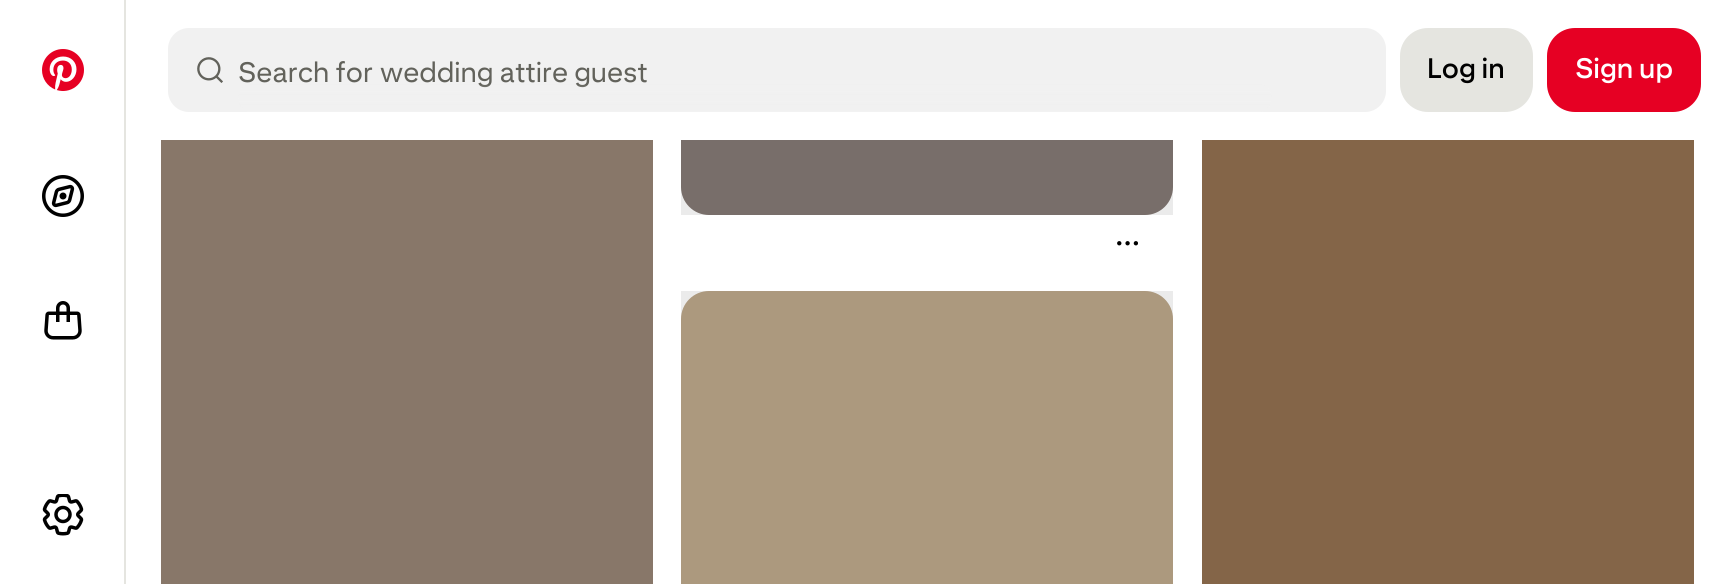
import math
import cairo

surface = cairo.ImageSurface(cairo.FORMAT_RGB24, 1729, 584)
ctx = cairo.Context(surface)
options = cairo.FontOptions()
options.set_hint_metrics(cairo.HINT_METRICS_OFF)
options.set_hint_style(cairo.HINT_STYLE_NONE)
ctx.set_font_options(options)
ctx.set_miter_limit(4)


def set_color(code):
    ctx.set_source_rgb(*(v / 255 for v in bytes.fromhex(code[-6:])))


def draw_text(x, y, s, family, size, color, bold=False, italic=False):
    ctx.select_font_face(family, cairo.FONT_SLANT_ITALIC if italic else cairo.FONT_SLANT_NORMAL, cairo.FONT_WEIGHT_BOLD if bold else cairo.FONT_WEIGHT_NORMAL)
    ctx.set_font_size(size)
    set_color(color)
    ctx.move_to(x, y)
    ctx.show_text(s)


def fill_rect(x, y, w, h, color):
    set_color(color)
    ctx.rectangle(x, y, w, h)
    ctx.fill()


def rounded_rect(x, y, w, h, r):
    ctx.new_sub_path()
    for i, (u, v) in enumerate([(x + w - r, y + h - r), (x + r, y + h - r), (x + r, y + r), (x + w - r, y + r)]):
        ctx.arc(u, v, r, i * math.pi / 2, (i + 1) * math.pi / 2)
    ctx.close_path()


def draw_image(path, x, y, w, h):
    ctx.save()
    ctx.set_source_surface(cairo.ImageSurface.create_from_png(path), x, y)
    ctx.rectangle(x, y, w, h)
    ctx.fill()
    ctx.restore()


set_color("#ffffff")
ctx.paint()
fill_rect(124, 0, 2, 584, "#e5e5e0")
draw_image("assets/img1.png", 42, 49, 42, 42)
draw_image("assets/img2.png", 42, 175, 42, 42)
draw_image("assets/img3.png", 44, 301, 38, 39)
draw_image("assets/img4.png", 42, 494, 42, 42)
set_color("#827772")
rounded_rect(681, -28, 492, 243, 28)
ctx.fill()
ctx.set_source_rgba(0, 0, 0, 0.04)
ctx.rectangle(681, 140, 492, 75)
ctx.fill()
ctx.rectangle(681, 140, 492, 75)
ctx.fill()
draw_image("assets/img5.png", 1117, 241, 21, 5)
fill_rect(161, 140, 492, 444, "#948171")
ctx.set_source_rgba(0, 0, 0, 0.04)
ctx.rectangle(161, 140, 492, 444)
ctx.fill()
ctx.rectangle(161, 140, 492, 444)
ctx.fill()
set_color("#baa588")
rounded_rect(681, 291, 492, 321, 28)
ctx.fill()
ctx.set_source_rgba(0, 0, 0, 0.04)
ctx.rectangle(681, 291, 492, 293)
ctx.fill()
ctx.rectangle(681, 291, 492, 293)
ctx.fill()
fill_rect(1202, 140, 492, 444, "#8f6d4e")
ctx.set_source_rgba(0, 0, 0, 0.04)
ctx.rectangle(1202, 140, 492, 444)
ctx.fill()
ctx.rectangle(1202, 140, 492, 444)
ctx.fill()
fill_rect(681, 0, 492, 140, "#ffffff")
set_color("#f1f1f1")
rounded_rect(168, 28, 1218, 84, 21)
ctx.fill()
draw_image("assets/img6.png", 197, 57, 26, 26)
draw_text(238, 82, "Search for", "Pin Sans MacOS", 28, "#62625b")
draw_text(380, 82, "wedding attire guest", "Pin Sans MacOS", 28, "#62625b")
gradient = cairo.LinearGradient(755, 84, 755, 112)
gradient.add_color_stop_rgba(0, 0.945, 0.945, 0.945, 0)
gradient.add_color_stop_rgba(1, 0.945, 0.945, 0.945, 1)
ctx.set_source(gradient)
rounded_rect(238, 84, 1034, 28, 14)
ctx.fill()
set_color("#e5e5e0")
rounded_rect(1400, 28, 133, 84, 28)
ctx.fill()
draw_text(1427, 78, "Log in", "Pin Sans MacOS Medium", 28, "#000000")
set_color("#e60023")
rounded_rect(1547, 28, 154, 84, 28)
ctx.fill()
draw_text(1575, 78, "Sign up", "Pin Sans MacOS Medium", 28, "#ffffff")
surface.write_to_png("output.png")
